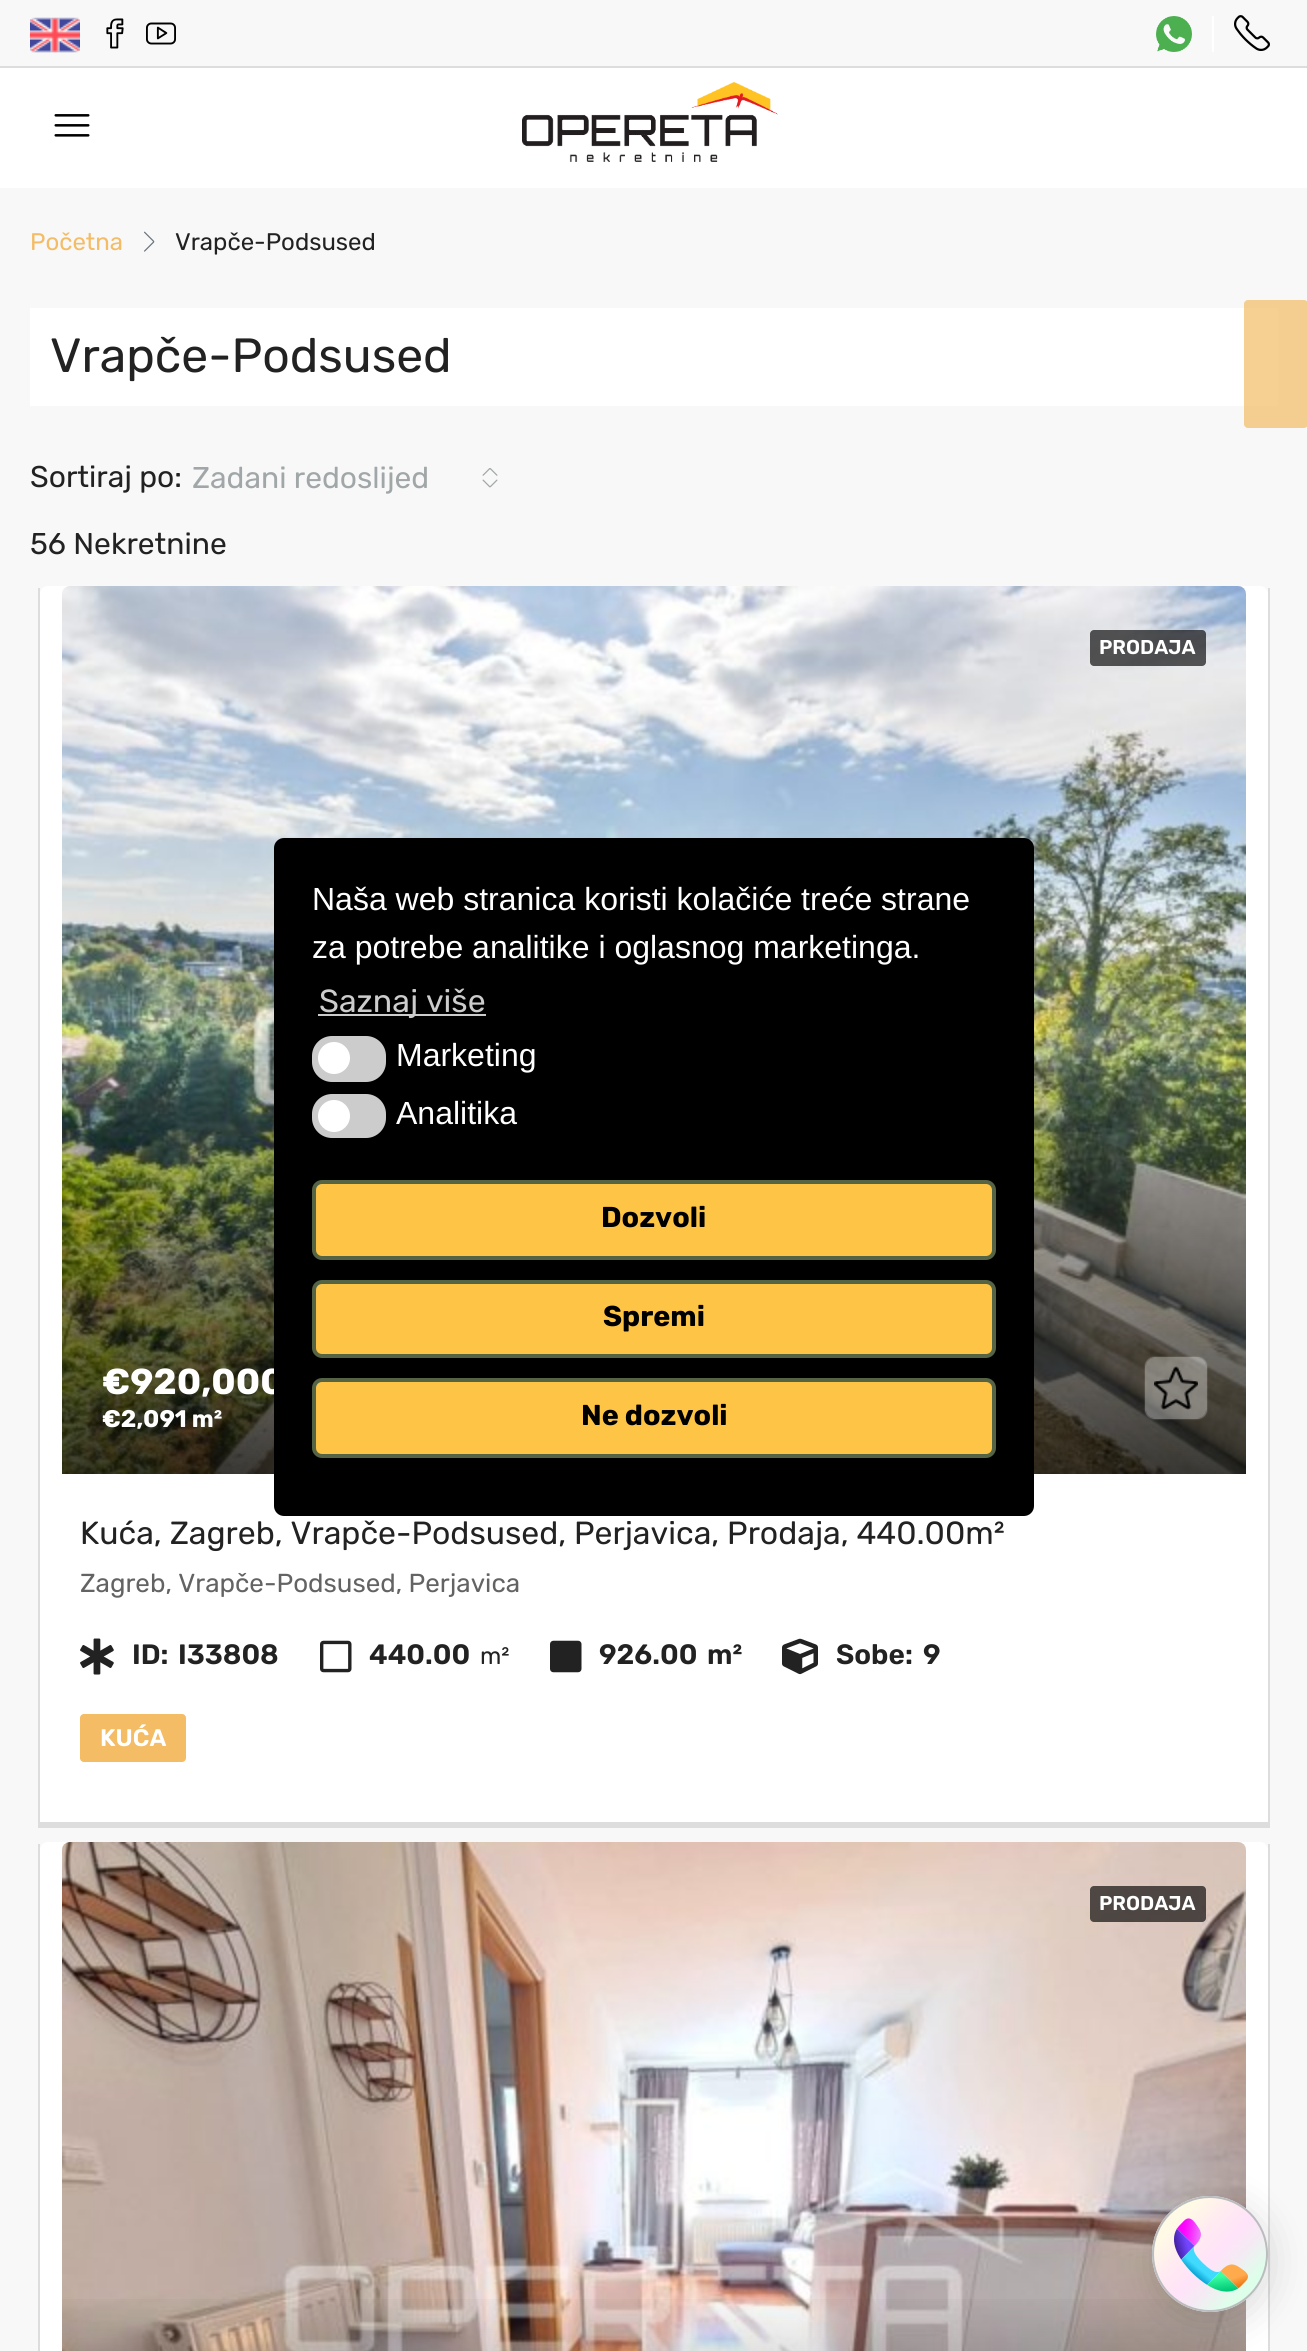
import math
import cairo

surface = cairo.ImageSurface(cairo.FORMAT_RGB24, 1307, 2351)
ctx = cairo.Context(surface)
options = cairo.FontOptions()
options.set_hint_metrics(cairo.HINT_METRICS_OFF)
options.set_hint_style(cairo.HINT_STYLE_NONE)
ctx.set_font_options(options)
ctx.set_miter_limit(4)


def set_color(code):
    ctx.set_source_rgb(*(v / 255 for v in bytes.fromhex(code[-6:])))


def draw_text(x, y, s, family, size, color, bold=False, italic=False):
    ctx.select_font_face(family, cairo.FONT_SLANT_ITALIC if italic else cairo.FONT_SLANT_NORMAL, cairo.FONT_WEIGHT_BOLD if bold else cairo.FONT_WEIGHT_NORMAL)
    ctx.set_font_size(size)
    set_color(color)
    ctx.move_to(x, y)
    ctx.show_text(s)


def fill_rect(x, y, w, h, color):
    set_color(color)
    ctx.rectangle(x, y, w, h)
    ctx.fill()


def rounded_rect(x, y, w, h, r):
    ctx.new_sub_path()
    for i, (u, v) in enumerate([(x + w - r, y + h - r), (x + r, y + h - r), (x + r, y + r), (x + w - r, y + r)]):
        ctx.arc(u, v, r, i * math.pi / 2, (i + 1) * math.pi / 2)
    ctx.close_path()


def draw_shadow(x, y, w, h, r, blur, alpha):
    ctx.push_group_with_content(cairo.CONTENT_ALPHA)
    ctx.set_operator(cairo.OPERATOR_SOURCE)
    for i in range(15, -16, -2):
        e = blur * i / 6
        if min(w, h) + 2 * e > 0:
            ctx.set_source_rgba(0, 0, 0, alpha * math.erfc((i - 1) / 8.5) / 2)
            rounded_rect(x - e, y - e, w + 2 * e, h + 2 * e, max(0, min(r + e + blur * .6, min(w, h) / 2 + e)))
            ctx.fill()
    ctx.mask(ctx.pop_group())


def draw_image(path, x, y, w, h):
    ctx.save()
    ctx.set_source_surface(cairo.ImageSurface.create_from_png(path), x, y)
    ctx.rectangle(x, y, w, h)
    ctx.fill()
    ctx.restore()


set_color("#f8f8f8")
ctx.paint()
fill_rect(0, 66, 1307, 2, "#dddddd")
draw_image("assets/img1.png", 30, 17, 50, 36)
draw_image("assets/img2.png", 106, 18, 18, 31)
draw_image("assets/img3.png", 146, 22, 30, 23)
fill_rect(1212, 16, 2, 36, "#ffffff")
draw_image("assets/img4.png", 1156, 16, 36, 36)
draw_image("assets/img5.png", 1234, 15, 36, 36)
fill_rect(0, 68, 1307, 120, "#ffffff")
draw_image("assets/img6.png", 54, 114, 36, 23)
draw_image("assets/img7.png", 522, 82, 256, 80)
draw_text(30, 250, "Početna", "Rubik", 24, "#f3bc65")
draw_image("assets/img8.png", 144, 231, 11, 21)
draw_text(175, 250, "Vrapče-Podsused", "Rubik", 24, "#222222")
fill_rect(30, 308, 1248, 98, "#ffffff")
draw_text(50, 372, "Vrapče-Podsused", "Rubik", 48, "#222222")
ctx.set_source_rgba(0.953, 0.737, 0.396, 0.7)
rounded_rect(1244, 300, 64, 128, 4)
ctx.fill()
draw_text(30, 487, "Sortiraj po:", "Rubik", 30, "#222222")
draw_text(192, 488, "Zadani redoslijed", "Rubik", 30, "#a1a7a8")
draw_image("assets/img9.png", 482, 468, 16, 20)
draw_text(30, 554, "56 Nekretnine", "Rubik", 30, "#222222")
set_color("#ffffff")
ctx.new_path()
ctx.move_to(48, 586)
ctx.line_to(1260, 586)
ctx.curve_to(1264.5, 586, 1268, 589.5, 1268, 594)
ctx.line_to(1268, 1822)
ctx.line_to(40, 1822)
ctx.line_to(40, 594)
ctx.curve_to(40, 589.5, 43.5, 586, 48, 586)
ctx.close_path()
ctx.fill()
set_color("#dddddd")
ctx.new_path()
ctx.move_to(38, 588)
ctx.line_to(38, 1828)
ctx.line_to(1270, 1828)
ctx.line_to(1270, 588)
ctx.line_to(1268, 588)
ctx.line_to(1268, 1822)
ctx.line_to(40, 1822)
ctx.line_to(40, 588)
ctx.close_path()
ctx.fill()
draw_image("assets/img10.png", 62, 586, 1184, 888)
gradient = cairo.LinearGradient(654, 586, 654, 1474)
gradient.add_color_stop_rgba(0, 0, 0, 0, 0)
gradient.add_color_stop_rgba(0.5, 0, 0, 0, 0)
gradient.add_color_stop_rgba(1, 0, 0, 0, 0.75)
ctx.set_source(gradient)
ctx.rectangle(62, 1043, 1184, 431)
ctx.fill()
ctx.set_source_rgba(0, 0, 0, 0.65)
rounded_rect(1090, 630, 116, 36, 4)
ctx.fill()
draw_text(1099, 654, "PRODAJA", "Rubik SemiBold", 20, "#ffffff")
draw_text(102, 1394, "€920,000", "Rubik", 36, "#ffffff", bold=True)
draw_text(102, 1427, "€2,091 m²", "Rubik", 24, "#ffffff", bold=True)
ctx.save()
ctx.set_fill_rule(cairo.FILL_RULE_EVEN_ODD)
ctx.new_path()
ctx.move_to(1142, 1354)
ctx.line_to(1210, 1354)
ctx.line_to(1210, 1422)
ctx.line_to(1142, 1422)
ctx.close_path()
ctx.move_to(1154, 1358)
ctx.line_to(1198, 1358)
ctx.curve_to(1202.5, 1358, 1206, 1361.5, 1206, 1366)
ctx.line_to(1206, 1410)
ctx.curve_to(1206, 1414.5, 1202.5, 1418, 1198, 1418)
ctx.line_to(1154, 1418)
ctx.curve_to(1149.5, 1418, 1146, 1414.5, 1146, 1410)
ctx.line_to(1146, 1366)
ctx.curve_to(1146, 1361.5, 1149.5, 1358, 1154, 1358)
ctx.close_path()
ctx.clip()
set_color("#ffffff")
draw_shadow(1146, 1358, 60, 60, 8, 1, 1)
ctx.restore()
ctx.set_source_rgba(1, 1, 1, 0.35)
rounded_rect(1146, 1358, 60, 60, 8)
ctx.fill()
draw_image("assets/img11.png", 1154, 1366, 44, 44)
draw_text(80, 1544, "Kuća, Zagreb, Vrapče-Podsused, Perjavica, Prodaja, 440.00m²", "Rubik", 32, "#222222")
draw_text(80, 1592, "Zagreb, Vrapče-Podsused, Perjavica", "Rubik", 26, "#636363")
draw_image("assets/img12.png", 80, 1638, 34, 37)
draw_text(132, 1664, "ID:", "Rubik SemiBold", 28, "#222222")
draw_text(178, 1664, "I33808", "Rubik SemiBold", 28, "#222222")
draw_image("assets/img13.png", 320, 1640, 32, 33)
draw_text(369, 1664, "440.00", "Rubik SemiBold", 28, "#222222")
draw_text(480, 1664, "m²", "Rubik", 24, "#222222")
draw_image("assets/img14.png", 550, 1640, 32, 33)
draw_text(599, 1664, "926.00", "Rubik SemiBold", 28, "#222222")
draw_text(707, 1664, "m²", "Rubik SemiBold", 28, "#222222")
draw_image("assets/img15.png", 782, 1638, 36, 37)
draw_text(836, 1664, "Sobe:", "Rubik SemiBold", 28, "#222222")
draw_text(923, 1664, "9", "Rubik SemiBold", 28, "#222222")
set_color("#f3bc65")
rounded_rect(80, 1714, 106, 48, 4)
ctx.fill()
draw_text(100, 1746, "KUĆA", "Rubik SemiBold", 24, "#ffffff")
ctx.new_path()
ctx.move_to(48, 1842)
ctx.line_to(1260, 1842)
ctx.curve_to(1264.5, 1842, 1268, 1845.5, 1268, 1850)
ctx.line_to(1268, 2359)
ctx.line_to(40, 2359)
ctx.line_to(40, 1850)
ctx.curve_to(40, 1845.5, 43.5, 1842, 48, 1842)
ctx.close_path()
ctx.fill()
set_color("#dddddd")
ctx.new_path()
ctx.move_to(38, 1844)
ctx.line_to(38, 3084)
ctx.line_to(1270, 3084)
ctx.line_to(1270, 1844)
ctx.line_to(1268, 1844)
ctx.line_to(1268, 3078)
ctx.line_to(40, 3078)
ctx.line_to(40, 1844)
ctx.close_path()
ctx.fill()
draw_image("assets/img16.png", 62, 1842, 1184, 509)
gradient = cairo.LinearGradient(654, 1842, 654, 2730)
gradient.add_color_stop_rgba(0, 0, 0, 0, 0)
gradient.add_color_stop_rgba(0.5, 0, 0, 0, 0)
gradient.add_color_stop_rgba(1, 0, 0, 0, 0.75)
ctx.set_source(gradient)
ctx.rectangle(62, 2299, 1184, 52)
ctx.fill()
ctx.set_source_rgba(0, 0, 0, 0.65)
rounded_rect(1090, 1886, 116, 36, 4)
ctx.fill()
draw_text(1099, 1910, "PRODAJA", "Rubik SemiBold", 20, "#ffffff")
set_color("#000000")
rounded_rect(274, 838, 760, 678, 10)
ctx.fill()
draw_text(312, 910, "Naša web stranica koristi kolačiće treće strane", "Liberation Sans", 32, "#ffffff")
draw_text(312, 958, "za potrebe analitike i oglasnog marketinga.", "Liberation Sans", 32, "#ffffff")
fill_rect(318, 1014, 168, 2, "#cccccc")
draw_text(319, 1012, "Saznaj više", "Rubik", 32, "#cccccc")
rounded_rect(312, 1036, 74, 46, 20)
ctx.fill()
set_color("#ffffff")
ctx.arc(334, 1058, 16, 0, 2 * math.pi)
ctx.fill()
draw_text(396, 1066, "Marketing", "Liberation Sans", 32, "#ffffff")
set_color("#cccccc")
rounded_rect(312, 1094, 74, 44, 20)
ctx.fill()
set_color("#ffffff")
ctx.arc(334, 1116, 16, 0, 2 * math.pi)
ctx.fill()
draw_text(396, 1124, "Analitika", "Liberation Sans", 32, "#ffffff")
set_color("#fec446")
rounded_rect(314, 1182, 680, 76, 8)
ctx.fill_preserve()
set_color("#546444")
ctx.set_line_width(4)
ctx.stroke()
draw_text(601, 1227, "Dozvoli", "Rubik", 28.75, "#000000", bold=True)
set_color("#fec446")
rounded_rect(314, 1282, 680, 74, 8)
ctx.fill_preserve()
set_color("#546444")
ctx.stroke()
draw_text(603, 1326, "Spremi", "Rubik", 28.75, "#000000", bold=True)
set_color("#fec446")
rounded_rect(314, 1380, 680, 76, 8)
ctx.fill_preserve()
set_color("#546444")
ctx.stroke()
draw_text(581, 1425, "Ne dozvoli", "Rubik", 28.75, "#000000", bold=True)
set_color("#000000")
draw_shadow(1152, 2204, 116, 116, 58, 20, 0.15)
draw_image("assets/img17.png", 1152, 2196, 116, 116)
ctx.arc(1210, 2254, 57, 0, 2 * math.pi)
set_color("#babcbf")
ctx.set_line_width(2)
ctx.stroke()
draw_image("assets/img18.png", 1174, 2218, 74, 74)
surface.write_to_png("output.png")
